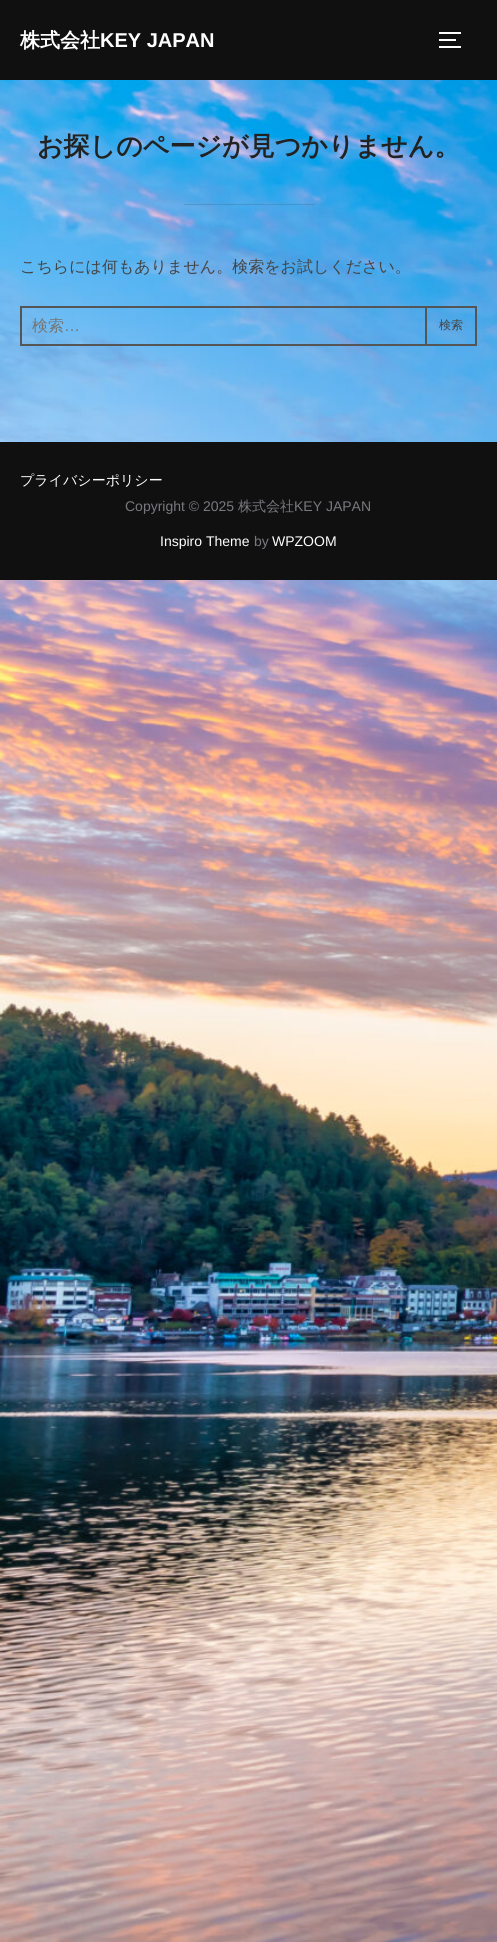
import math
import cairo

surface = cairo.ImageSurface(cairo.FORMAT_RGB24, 497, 1942)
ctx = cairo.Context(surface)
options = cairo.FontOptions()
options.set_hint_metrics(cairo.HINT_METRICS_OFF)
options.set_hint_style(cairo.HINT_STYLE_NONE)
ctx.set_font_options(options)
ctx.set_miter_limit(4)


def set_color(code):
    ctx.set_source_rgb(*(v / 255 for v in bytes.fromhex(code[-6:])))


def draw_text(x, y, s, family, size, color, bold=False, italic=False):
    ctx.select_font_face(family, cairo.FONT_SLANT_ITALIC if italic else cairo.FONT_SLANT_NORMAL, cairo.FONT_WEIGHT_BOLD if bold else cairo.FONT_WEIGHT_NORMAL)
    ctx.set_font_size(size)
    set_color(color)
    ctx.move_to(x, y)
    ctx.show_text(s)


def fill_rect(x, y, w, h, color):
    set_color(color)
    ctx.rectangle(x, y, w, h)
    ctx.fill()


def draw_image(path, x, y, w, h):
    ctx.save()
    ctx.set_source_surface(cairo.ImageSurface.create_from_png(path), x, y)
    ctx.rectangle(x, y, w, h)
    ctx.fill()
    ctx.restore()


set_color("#ffffff")
ctx.paint()
draw_image("assets/img1.png", 0, 80, 497, 1862)
fill_rect(0, 0, 497, 80, "#101010")
draw_text(20, 47, "株式会社", "WenQuanYi Zen Hei", 20, "#ffffff", bold=True)
draw_text(100, 47, "KEY JAPAN", "Liberation Sans", 20, "#ffffff", bold=True)
fill_rect(439, 32, 22, 2, "#ffffff")
fill_rect(439, 39, 17, 2, "#ffffff")
fill_rect(439, 46, 22, 2, "#ffffff")
draw_text(37, 155, "お探しのページが見つかりません。", "WenQuanYi Zen Hei", 26, "#222222", bold=True)
ctx.set_source_rgba(0.267, 0.267, 0.267, 0.19)
ctx.rectangle(184, 204, 130, 1)
ctx.fill()
draw_text(20, 272, "こちらには何もありません。検索をお試しください。", "WenQuanYi Zen Hei Medium", 16, "#444444")
ctx.rectangle(21, 307, 455, 38)
set_color("#565555")
ctx.stroke()
draw_text(32, 331, "検索", "WenQuanYi Zen Hei Medium", 16, "#757575")
draw_text(64, 331, "…", "Liberation Sans", 16, "#757575")
ctx.rectangle(426, 307, 50, 38)
set_color("#565555")
ctx.stroke()
draw_text(439, 329, "検索", "WenQuanYi Zen Hei Medium", 12, "#444444")
fill_rect(0, 442, 497, 138, "#101010")
draw_text(20, 485, "プライバシーポリシー", "WenQuanYi Zen Hei Medium", 14, "#ffffff")
draw_text(125, 511, "Copyright © 2025", "Liberation Sans", 14, "#78787f")
draw_text(238, 511, "株式会社", "WenQuanYi Zen Hei Medium", 14, "#78787f")
draw_text(294, 511, "KEY JAPAN", "Liberation Sans", 14, "#78787f")
draw_text(160, 546, "Inspiro Theme", "Liberation Sans", 14, "#ffffff")
draw_text(254, 546, "by", "Liberation Sans", 14, "#78787f")
draw_text(272, 546, "WPZOOM", "Liberation Sans", 14, "#ffffff")
surface.write_to_png("output.png")
